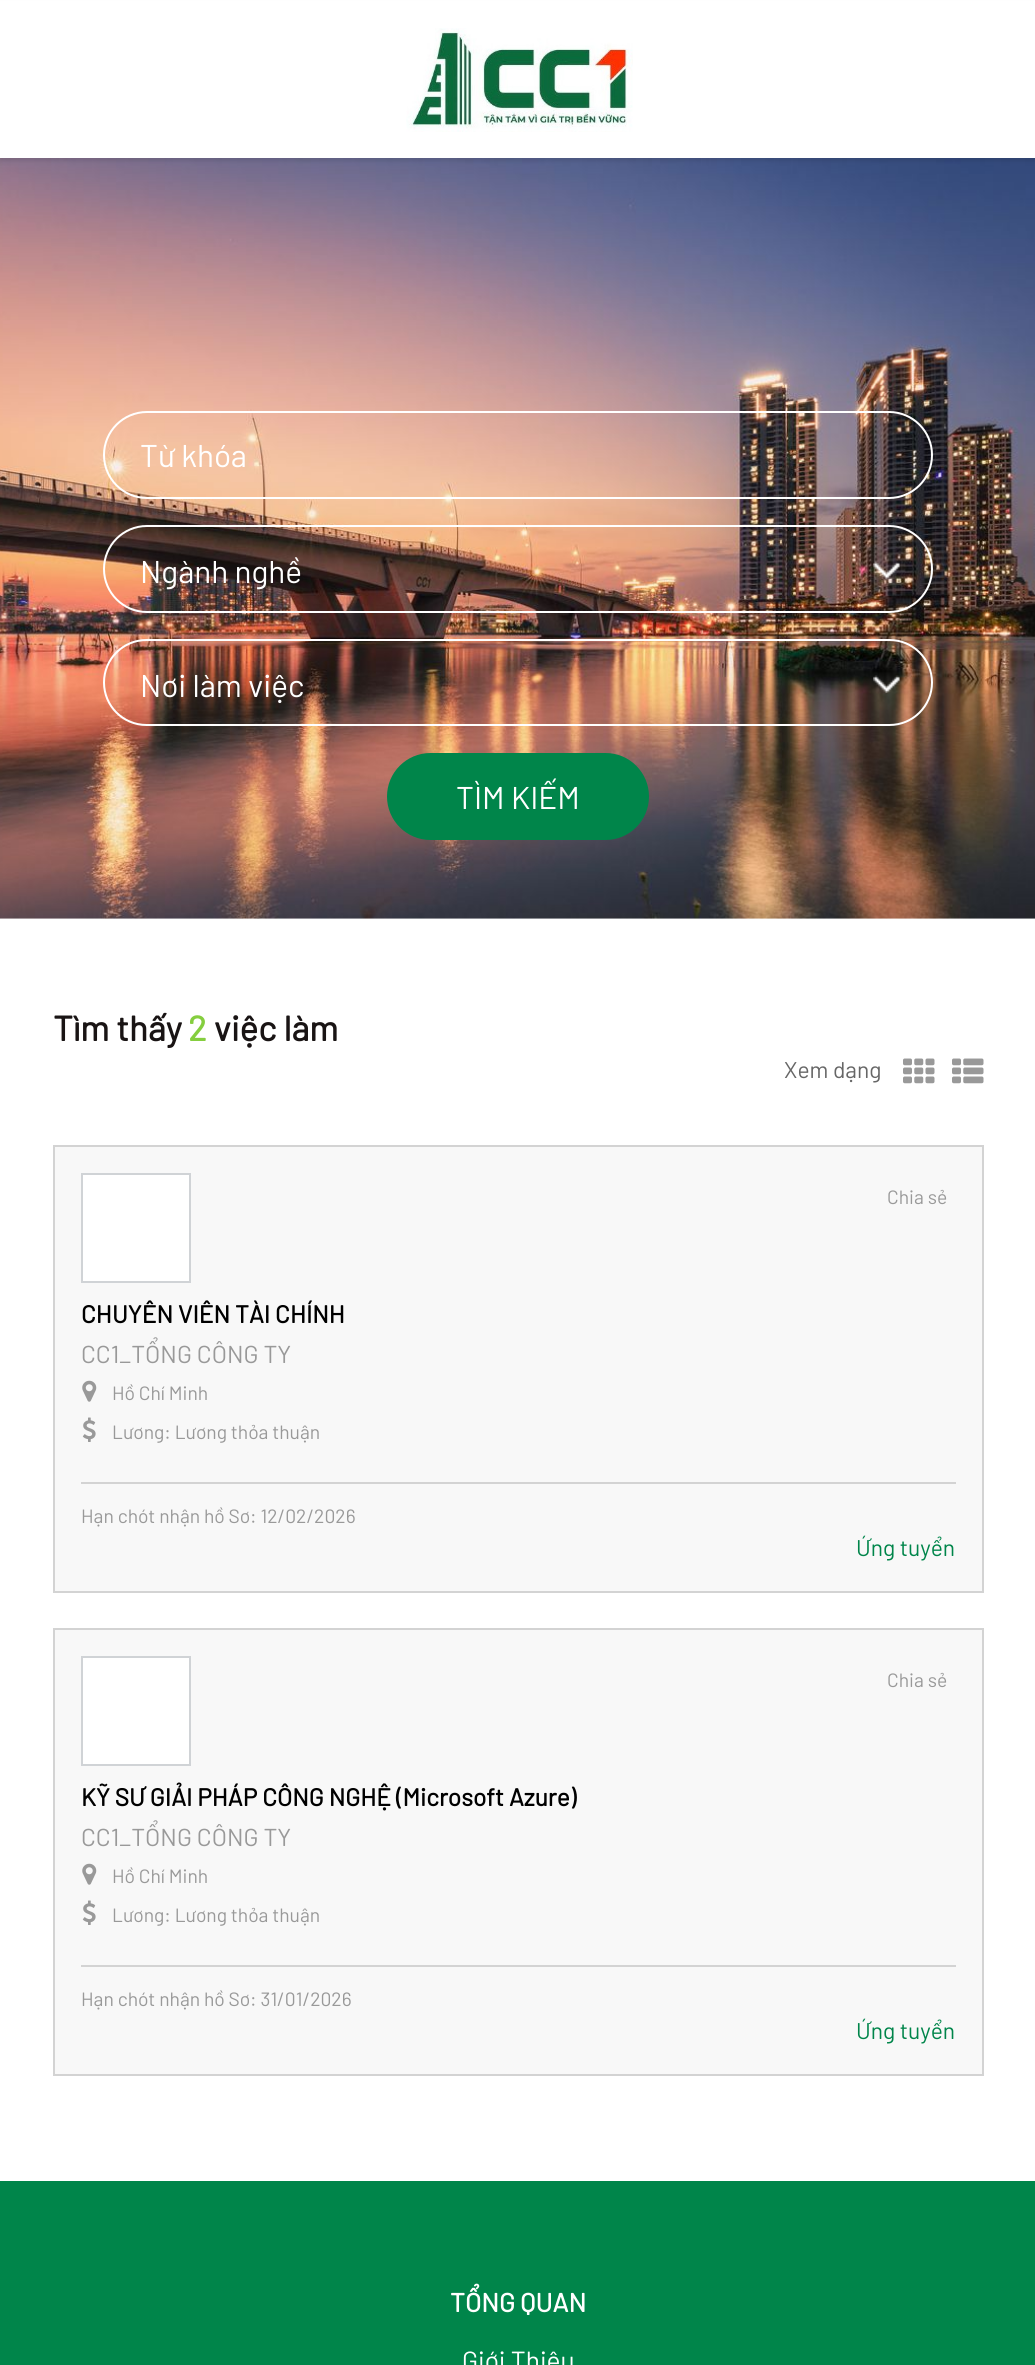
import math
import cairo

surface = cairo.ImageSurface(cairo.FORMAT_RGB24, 1035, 2365)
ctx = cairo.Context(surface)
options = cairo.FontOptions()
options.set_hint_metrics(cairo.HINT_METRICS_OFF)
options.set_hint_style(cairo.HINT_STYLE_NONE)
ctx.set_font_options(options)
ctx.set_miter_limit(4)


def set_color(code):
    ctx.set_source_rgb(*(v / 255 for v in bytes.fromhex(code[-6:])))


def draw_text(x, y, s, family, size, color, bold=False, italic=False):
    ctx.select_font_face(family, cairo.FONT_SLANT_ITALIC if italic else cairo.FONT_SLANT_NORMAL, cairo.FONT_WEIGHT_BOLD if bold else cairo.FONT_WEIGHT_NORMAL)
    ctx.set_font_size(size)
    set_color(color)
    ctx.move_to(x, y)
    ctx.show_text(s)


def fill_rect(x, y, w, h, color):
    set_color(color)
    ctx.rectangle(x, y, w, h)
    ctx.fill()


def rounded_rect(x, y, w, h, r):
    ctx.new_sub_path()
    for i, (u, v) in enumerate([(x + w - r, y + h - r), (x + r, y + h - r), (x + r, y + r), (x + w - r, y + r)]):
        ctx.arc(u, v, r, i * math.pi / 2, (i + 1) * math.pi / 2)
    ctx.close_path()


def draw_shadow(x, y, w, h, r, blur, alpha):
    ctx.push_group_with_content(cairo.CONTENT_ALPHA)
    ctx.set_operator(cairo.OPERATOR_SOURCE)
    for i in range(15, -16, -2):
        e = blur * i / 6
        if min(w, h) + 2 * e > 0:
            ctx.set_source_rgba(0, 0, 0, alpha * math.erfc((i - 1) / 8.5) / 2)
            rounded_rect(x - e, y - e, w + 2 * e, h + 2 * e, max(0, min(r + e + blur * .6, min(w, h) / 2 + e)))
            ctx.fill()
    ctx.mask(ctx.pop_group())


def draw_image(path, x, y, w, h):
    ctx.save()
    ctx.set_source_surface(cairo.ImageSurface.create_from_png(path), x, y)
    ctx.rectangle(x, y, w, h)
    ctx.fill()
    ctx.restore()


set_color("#ffffff")
ctx.paint()
draw_image("assets/img2.png", 0, 158, 1035, 761)
set_color("#000000")
draw_shadow(0, 4, 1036, 157, 0, 2, 0.1)
fill_rect(0, 1, 1035, 157, "#ffffff")
draw_image("assets/img1.png", 406, 28, 227, 104)
rounded_rect(104, 412, 828, 86, 43)
ctx.stroke()
draw_text(140, 467, "Từ khóa", "Barlow", 31.5, "#ffffff")
rounded_rect(104, 526, 828, 86, 43)
ctx.stroke()
draw_text(140, 583, "Ngành nghề", "Barlow", 31.5, "#ffffff")
draw_image("assets/img3.png", 873, 561, 27, 19)
rounded_rect(104, 640, 828, 85, 42.5)
ctx.stroke()
draw_text(140, 697, "Nơi làm việc", "Barlow", 31.5, "#ffffff")
draw_image("assets/img4.png", 873, 675, 27, 18)
set_color("#00854a")
rounded_rect(387, 753, 262, 87, 43.5)
ctx.fill()
draw_text(456, 809, "TÌM KIẾM", "Barlow", 31.5, "#ffffff")
draw_text(53, 1041, "Tìm thấy", "Barlow", 35, "#191414", bold=True)
draw_text(188, 1041, "2", "Barlow", 35, "#85ce3f", bold=True)
draw_text(214, 1041, "việc làm", "Barlow", 35, "#191414", bold=True)
draw_text(784, 1078, "Xem dạng", "Barlow", 22.75, "#666666")
draw_image("assets/img5.png", 903, 1058, 32, 26)
draw_image("assets/img6.png", 952, 1058, 32, 26)
set_color("#f8f8f8")
ctx.rectangle(54, 1146, 929, 446)
ctx.fill_preserve()
set_color("#d3d3d3")
ctx.stroke()
set_color("#ffffff")
ctx.rectangle(82, 1174, 108, 108)
ctx.fill_preserve()
set_color("#d0d3d6")
ctx.stroke()
draw_text(887, 1204, "Chia sẻ", "Barlow", 19.25, "#999999")
draw_text(81, 1323, "CHUYÊN VIÊN TÀI CHÍNH", "Barlow", 24.5, "#000000", bold=True)
draw_text(81, 1363, "CC1_TỔNG CÔNG TY", "Barlow", 24.5, "#999999")
draw_image("assets/img7.png", 82, 1380, 15, 22)
draw_text(112, 1400, "Hồ Chí Minh", "Barlow", 19.25, "#999999")
draw_image("assets/img8.png", 82, 1417, 14, 25)
draw_text(112, 1439, "Lương: Lương thỏa thuận", "Barlow", 19.25, "#999999")
fill_rect(81, 1482, 875, 2, "#d3d3d3")
draw_text(81, 1523, "Hạn chót nhận hồ Sơ: 12/02/2026", "Barlow", 19.25, "#999999")
draw_text(856, 1556, "Ứng tuyển", "Barlow", 22.75, "#00854a")
set_color("#f8f8f8")
ctx.rectangle(54, 1629, 929, 446)
ctx.fill_preserve()
set_color("#d3d3d3")
ctx.stroke()
set_color("#ffffff")
ctx.rectangle(82, 1657, 108, 108)
ctx.fill_preserve()
set_color("#d0d3d6")
ctx.stroke()
draw_text(887, 1687, "Chia sẻ", "Barlow", 19.25, "#999999")
draw_text(81, 1806, "KỸ SƯ GIẢI PHÁP CÔNG NGHỆ (Microsoft Azure)", "Barlow", 24.5, "#000000", bold=True)
draw_text(81, 1846, "CC1_TỔNG CÔNG TY", "Barlow", 24.5, "#999999")
draw_image("assets/img7.png", 82, 1863, 15, 22)
draw_text(112, 1883, "Hồ Chí Minh", "Barlow", 19.25, "#999999")
draw_image("assets/img8.png", 82, 1900, 14, 25)
draw_text(112, 1922, "Lương: Lương thỏa thuận", "Barlow", 19.25, "#999999")
fill_rect(81, 1965, 875, 2, "#d3d3d3")
draw_text(81, 2006, "Hạn chót nhận hồ Sơ: 31/01/2026", "Barlow", 19.25, "#999999")
draw_text(856, 2039, "Ứng tuyển", "Barlow", 22.75, "#00854a")
fill_rect(0, 2181, 1035, 184, "#00854a")
draw_text(450, 2312, "TỔNG QUAN", "Barlow", 26.25, "#ffffff", bold=True)
draw_text(462, 2370, "Giới Thiệu", "Barlow", 26.25, "#ffffff")
surface.write_to_png("output.png")
